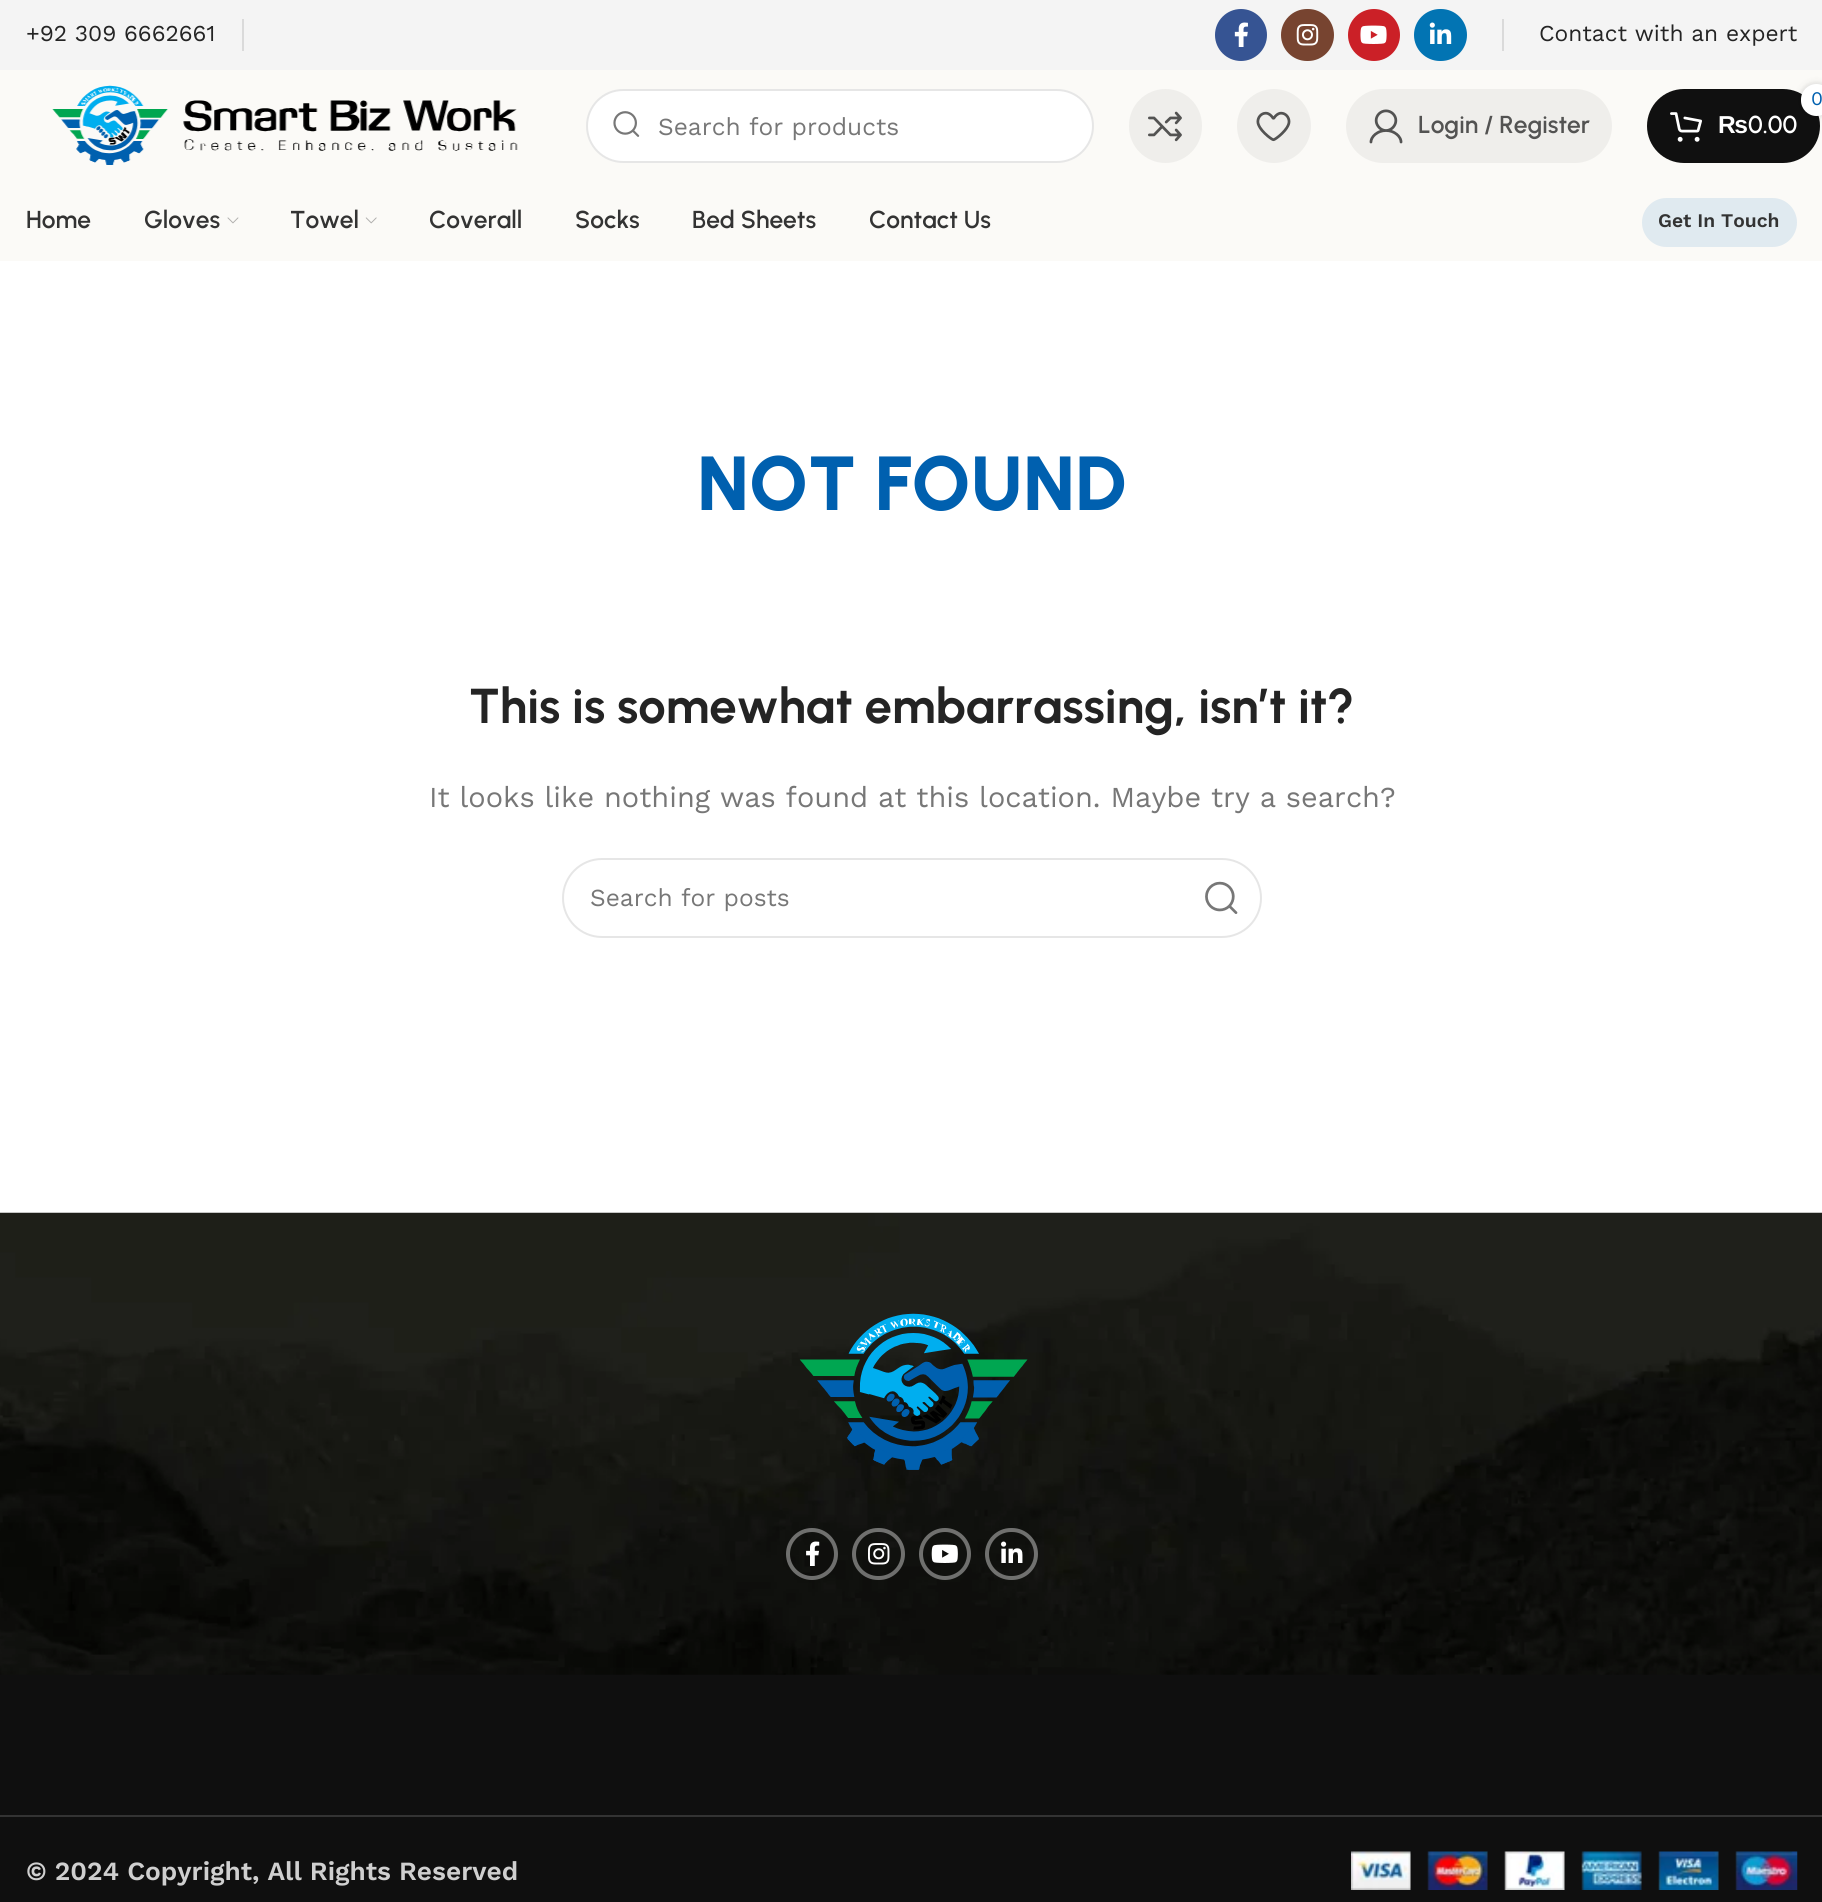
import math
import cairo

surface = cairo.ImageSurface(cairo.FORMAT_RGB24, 1822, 1902)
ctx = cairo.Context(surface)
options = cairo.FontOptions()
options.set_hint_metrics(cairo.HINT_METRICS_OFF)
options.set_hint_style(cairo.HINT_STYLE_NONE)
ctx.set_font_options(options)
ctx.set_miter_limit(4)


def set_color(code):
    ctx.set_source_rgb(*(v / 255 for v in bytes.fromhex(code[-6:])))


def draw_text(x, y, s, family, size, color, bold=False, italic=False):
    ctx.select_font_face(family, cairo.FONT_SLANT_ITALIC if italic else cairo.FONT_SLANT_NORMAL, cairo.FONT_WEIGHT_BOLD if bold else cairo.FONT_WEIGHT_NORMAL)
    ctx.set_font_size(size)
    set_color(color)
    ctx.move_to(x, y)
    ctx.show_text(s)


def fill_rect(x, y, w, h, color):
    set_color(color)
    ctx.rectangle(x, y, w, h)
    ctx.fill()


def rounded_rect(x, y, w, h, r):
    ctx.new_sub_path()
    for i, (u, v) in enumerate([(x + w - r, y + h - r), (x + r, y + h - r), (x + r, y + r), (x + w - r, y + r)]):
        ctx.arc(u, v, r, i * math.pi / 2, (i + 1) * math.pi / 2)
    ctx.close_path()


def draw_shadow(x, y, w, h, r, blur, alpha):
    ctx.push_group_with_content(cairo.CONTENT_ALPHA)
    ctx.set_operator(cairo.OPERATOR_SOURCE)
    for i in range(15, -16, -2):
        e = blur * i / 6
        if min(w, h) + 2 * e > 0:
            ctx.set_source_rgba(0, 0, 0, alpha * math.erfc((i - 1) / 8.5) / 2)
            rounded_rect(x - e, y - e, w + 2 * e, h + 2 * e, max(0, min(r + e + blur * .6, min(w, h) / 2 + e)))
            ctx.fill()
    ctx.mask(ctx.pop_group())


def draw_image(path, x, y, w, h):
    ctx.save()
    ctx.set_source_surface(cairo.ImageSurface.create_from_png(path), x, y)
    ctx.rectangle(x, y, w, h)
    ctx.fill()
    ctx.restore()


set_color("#ffffff")
ctx.paint()
fill_rect(0, 0, 1822, 70, "#f4f4f4")
draw_text(26, 41, "+92 309 6662661", "Work Sans", 22.75, "#242424")
fill_rect(242, 19, 2, 32, "#dadada")
set_color("#365493")
ctx.new_path()
ctx.arc(1241, 35, 26, 0, 2 * math.pi)
ctx.fill()
draw_image("assets/img1.png", 1234, 22, 14, 25)
set_color("#774430")
rounded_rect(1281, 9, 53, 52, 26)
ctx.fill()
draw_image("assets/img2.png", 1296, 24, 23, 22)
set_color("#cb2027")
ctx.arc(1374, 35, 26, 0, 2 * math.pi)
ctx.fill()
draw_image("assets/img3.png", 1360, 25, 27, 19)
set_color("#0274b3")
rounded_rect(1414, 9, 53, 52, 26)
ctx.fill()
draw_image("assets/img4.png", 1429, 22, 23, 22)
fill_rect(1502, 19, 2, 32, "#dadada")
draw_text(1539, 41, "Contact with an expert", "Work Sans", 22.75, "#242424")
fill_rect(0, 70, 1822, 191, "#fbfaf7")
draw_image("assets/img5.png", 52, 85, 466, 80)
set_color("#ffffff")
rounded_rect(586, 89, 508, 74, 37)
ctx.fill()
rounded_rect(587, 90, 506, 72, 36)
ctx.set_source_rgba(0, 0, 0, 0.1)
ctx.stroke()
draw_image("assets/img6.png", 613, 111, 27, 26)
draw_text(658, 135, "Search for products", "Work Sans", 24.5, "#777777")
set_color("#efeeeb")
rounded_rect(1129, 89, 73, 74, 36.5)
ctx.fill()
draw_image("assets/img7.png", 1148, 111, 34, 31)
ctx.arc(1274, 126, 37, 0, 2 * math.pi)
ctx.fill()
draw_image("assets/img8.png", 1256, 111, 35, 31)
rounded_rect(1346, 89, 266, 74, 37)
ctx.fill()
draw_image("assets/img9.png", 1369, 109, 34, 35)
draw_text(1418, 133, "Login / Register", "Urbanist SemiBold", 24.5, "#535352")
set_color("#101010")
rounded_rect(1647, 89, 173, 74, 37)
ctx.fill()
set_color("#000000")
draw_shadow(1801, 84, 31, 32, 15.5, 3.5, 0.17)
set_color("#ffffff")
rounded_rect(1801, 84, 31, 32, 15.5)
ctx.fill()
draw_text(1811, 105, "0", "Work Sans", 19.25, "#0060af")
draw_image("assets/img10.png", 1670, 112, 32, 30)
draw_text(1718, 133, "₨", "Liberation Sans", 24.5, "#ffffff", bold=True)
draw_text(1748, 133, "0.00", "Urbanist SemiBold", 24.5, "#ffffff")
draw_text(26, 228, "Home", "Urbanist SemiBold", 24.5, "#333333")
draw_text(144, 228, "Gloves", "Urbanist SemiBold", 24.5, "#333333")
draw_image("assets/img11.png", 227, 217, 12, 7)
draw_text(290, 228, "Towel", "Urbanist SemiBold", 24.5, "#333333")
draw_image("assets/img12.png", 365, 217, 12, 7)
draw_text(429, 228, "Coverall", "Urbanist SemiBold", 24.5, "#333333")
draw_text(575, 228, "Socks", "Urbanist SemiBold", 24.5, "#333333")
draw_text(692, 228, "Bed Sheets", "Urbanist SemiBold", 24.5, "#333333")
draw_text(869, 228, "Contact Us", "Urbanist SemiBold", 24.5, "#333333")
set_color("#e0eaf0")
rounded_rect(1642, 198, 155, 49, 24.5)
ctx.fill()
draw_text(1658, 227, "Get In Touch", "Work Sans SemiBold", 19.25, "#333333")
draw_text(697, 510, "NOT FOUND", "Urbanist ExtraBold", 76.5, "#0060af")
draw_text(469, 723, "This is somewhat embarrassing, isn’t it?", "Urbanist", 49, "#242424", bold=True)
draw_text(429, 807, "It looks like nothing was found at this location. Maybe try a search?", "Work Sans", 28.9, "#777777")
rounded_rect(563, 859, 698, 78, 39)
set_color("#e6e6e6")
ctx.stroke()
draw_text(590, 906, "Search for posts", "Work Sans", 24.5, "#777777")
draw_image("assets/img13.png", 1205, 881, 33, 33)
fill_rect(0, 1674, 1822, 228, "#0f0f0f")
draw_image("assets/img14.png", 0, 1212, 1822, 463)
draw_image("assets/img15.png", 799, 1313, 229, 157)
ctx.arc(812, 1554, 24, 0, 2 * math.pi)
ctx.set_source_rgba(1, 1, 1, 0.4)
ctx.set_line_width(4)
ctx.stroke()
draw_image("assets/img16.png", 806, 1541, 14, 25)
rounded_rect(854, 1530, 49, 48, 24)
ctx.stroke()
draw_image("assets/img17.png", 868, 1543, 22, 22)
ctx.arc(945, 1554, 24, 0, 2 * math.pi)
ctx.stroke()
draw_image("assets/img18.png", 931, 1544, 27, 19)
rounded_rect(987, 1530, 49, 48, 24)
ctx.stroke()
draw_image("assets/img19.png", 1001, 1541, 22, 22)
fill_rect(0, 1815, 1822, 2, "#333333")
draw_text(26, 1880, "© 2024 Copyright, All Rights Reserved", "Work Sans SemiBold", 26.25, "#cfcfcf")
draw_image("assets/img20.png", 1351, 1851, 447, 39)
surface.write_to_png("output.png")
